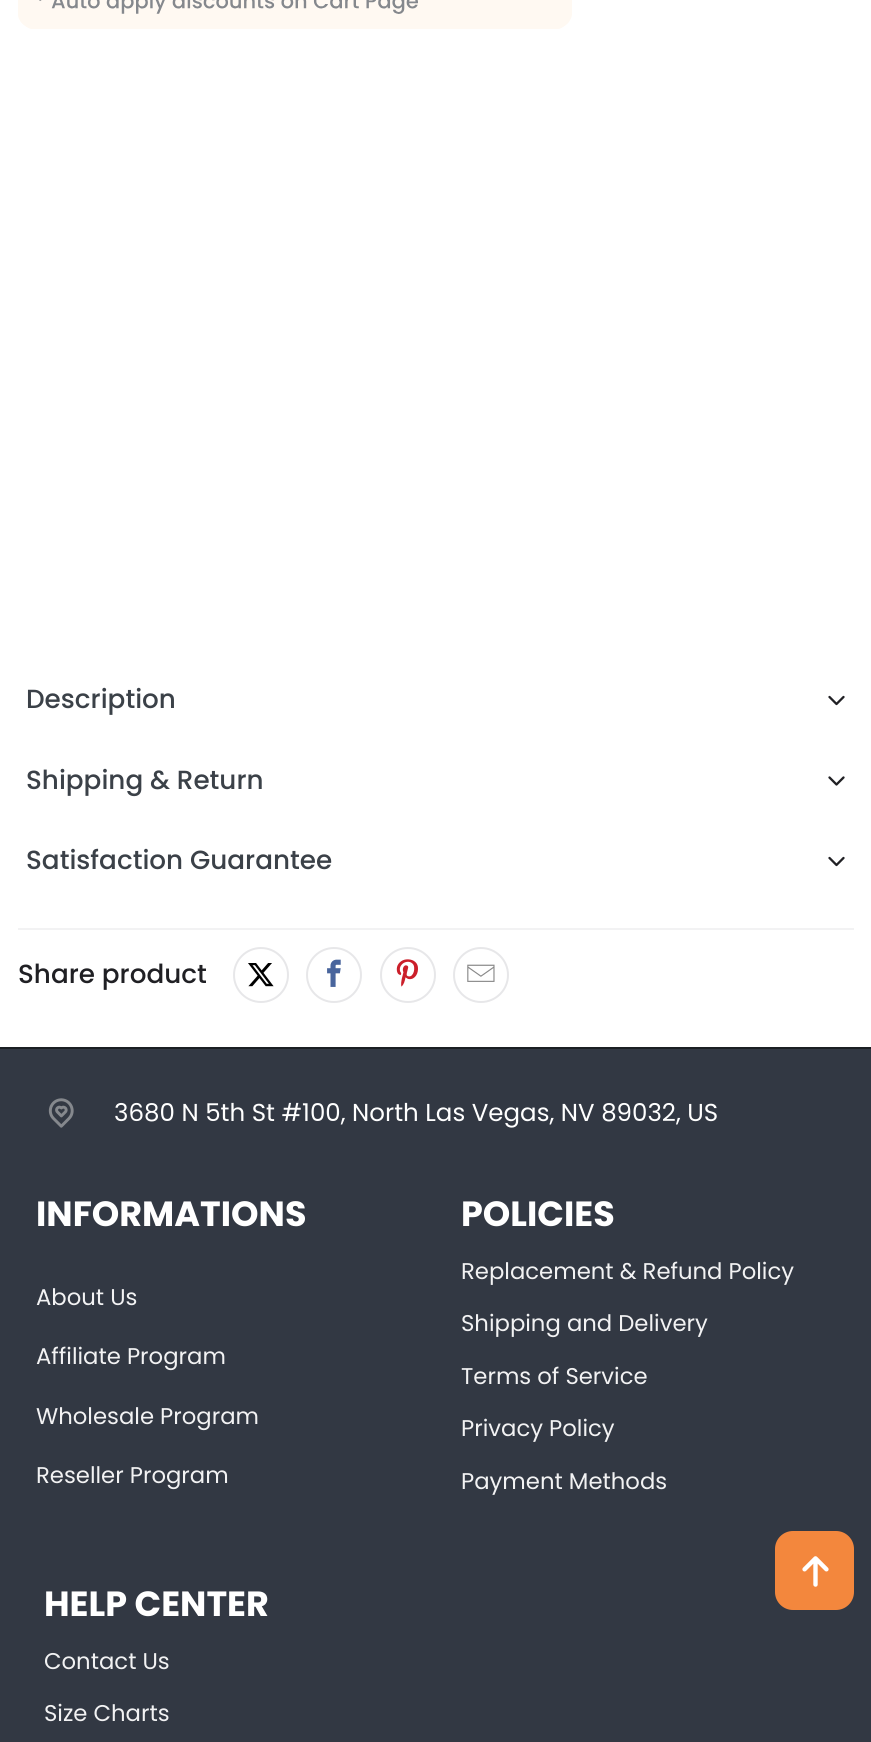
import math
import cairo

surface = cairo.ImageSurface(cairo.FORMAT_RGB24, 871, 1742)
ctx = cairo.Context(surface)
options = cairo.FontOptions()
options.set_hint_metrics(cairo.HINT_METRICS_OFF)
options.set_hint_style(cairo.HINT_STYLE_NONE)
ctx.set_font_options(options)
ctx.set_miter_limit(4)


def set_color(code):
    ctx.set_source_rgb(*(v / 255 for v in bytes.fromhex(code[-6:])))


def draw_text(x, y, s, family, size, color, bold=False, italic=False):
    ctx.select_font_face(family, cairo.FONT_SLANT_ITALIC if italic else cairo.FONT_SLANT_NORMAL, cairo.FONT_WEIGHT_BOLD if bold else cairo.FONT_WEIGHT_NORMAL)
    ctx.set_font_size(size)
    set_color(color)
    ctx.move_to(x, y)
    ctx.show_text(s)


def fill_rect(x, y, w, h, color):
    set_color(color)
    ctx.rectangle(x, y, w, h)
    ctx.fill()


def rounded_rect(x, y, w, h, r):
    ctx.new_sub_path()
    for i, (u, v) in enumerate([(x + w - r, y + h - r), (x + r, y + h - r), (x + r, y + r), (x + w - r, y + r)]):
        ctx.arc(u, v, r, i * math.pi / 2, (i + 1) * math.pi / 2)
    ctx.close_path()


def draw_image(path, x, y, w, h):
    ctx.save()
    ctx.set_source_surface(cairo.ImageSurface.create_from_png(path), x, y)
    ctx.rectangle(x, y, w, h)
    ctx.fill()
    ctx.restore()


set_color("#ffffff")
ctx.paint()
draw_image("assets/img1.png", 18, 0, 554, 29)
draw_text(26, 708, "Description", "Poppins Medium", 26.25, "#3b4148")
ctx.new_path()
ctx.move_to(829.5, 697)
ctx.line_to(836.5, 704)
ctx.line_to(843.5, 697)
set_color("#202024")
ctx.set_line_width(2.3)
ctx.set_line_cap(cairo.LINE_CAP_ROUND)
ctx.set_line_join(cairo.LINE_JOIN_ROUND)
ctx.stroke()
draw_text(26, 789, "Shipping & Return", "Poppins Medium", 26.25, "#3b4148")
ctx.new_path()
ctx.move_to(829.5, 777.5)
ctx.line_to(836.5, 784.5)
ctx.line_to(843.5, 777.5)
set_color("#202024")
ctx.stroke()
draw_text(26, 869, "Satisfaction Guarantee", "Poppins Medium", 26.25, "#3b4148")
ctx.new_path()
ctx.move_to(829.5, 858)
ctx.line_to(836.5, 865)
ctx.line_to(843.5, 858)
set_color("#202024")
ctx.stroke()
fill_rect(18, 928, 836, 2, "#f2f2f3")
draw_text(18, 983, "Share product", "Poppins Medium", 26.25, "#202024")
ctx.new_path()
ctx.arc(261, 975, 27, 0, 2 * math.pi)
set_color("#e7e7e9")
ctx.set_line_width(2)
ctx.set_line_cap(cairo.LINE_CAP_BUTT)
ctx.set_line_join(cairo.LINE_JOIN_MITER)
ctx.stroke()
draw_image("assets/img2.png", 248, 963, 26, 24)
ctx.arc(334, 975, 27, 0, 2 * math.pi)
ctx.stroke()
draw_image("assets/img3.png", 327, 959, 14, 28)
ctx.arc(408, 975, 27, 0, 2 * math.pi)
ctx.stroke()
draw_image("assets/img4.png", 396, 959, 22, 28)
ctx.arc(481, 975, 27, 0, 2 * math.pi)
ctx.stroke()
draw_image("assets/img5.png", 467, 964, 28, 18)
fill_rect(0, 1049, 871, 693, "#323843")
fill_rect(0, 1047, 871, 2, "#1b1f23")
draw_image("assets/img6.png", 48, 1098, 26, 30)
draw_text(114, 1121, "3680 N 5th St #100, North Las Vegas, NV 89032, US", "Poppins", 24.5, "#ffffff")
draw_text(36, 1226, "INFORMATIONS", "Poppins", 35, "#ffffff", bold=True)
draw_text(36, 1305, "About Us", "Poppins", 22.75, "#f2f2f3")
draw_text(36, 1364, "Affiliate Program", "Poppins", 22.75, "#f2f2f3")
draw_text(36, 1424, "Wholesale Program", "Poppins", 22.75, "#f2f2f3")
draw_text(36, 1483, "Reseller Program", "Poppins", 22.75, "#f2f2f3")
draw_text(461, 1226, "POLICIES", "Poppins", 35, "#ffffff", bold=True)
draw_text(461, 1279, "Replacement & Refund Policy", "Poppins", 22.75, "#f2f2f3")
draw_text(461, 1331, "Shipping and Delivery", "Poppins", 22.75, "#f2f2f3")
draw_text(461, 1384, "Terms of Service", "Poppins", 22.75, "#f2f2f3")
draw_text(461, 1436, "Privacy Policy", "Poppins", 22.75, "#f2f2f3")
draw_text(461, 1489, "Payment Methods", "Poppins", 22.75, "#f2f2f3")
draw_text(44, 1616, "HELP CENTER", "Poppins", 35, "#ffffff", bold=True)
draw_text(44, 1669, "Contact Us", "Poppins", 22.75, "#f2f2f3")
draw_text(44, 1721, "Size Charts", "Poppins", 22.75, "#f2f2f3")
set_color("#f3873d")
rounded_rect(775, 1531, 79, 79, 18)
ctx.fill()
draw_image("assets/img7.png", 802, 1556, 27, 31)
surface.write_to_png("output.png")
